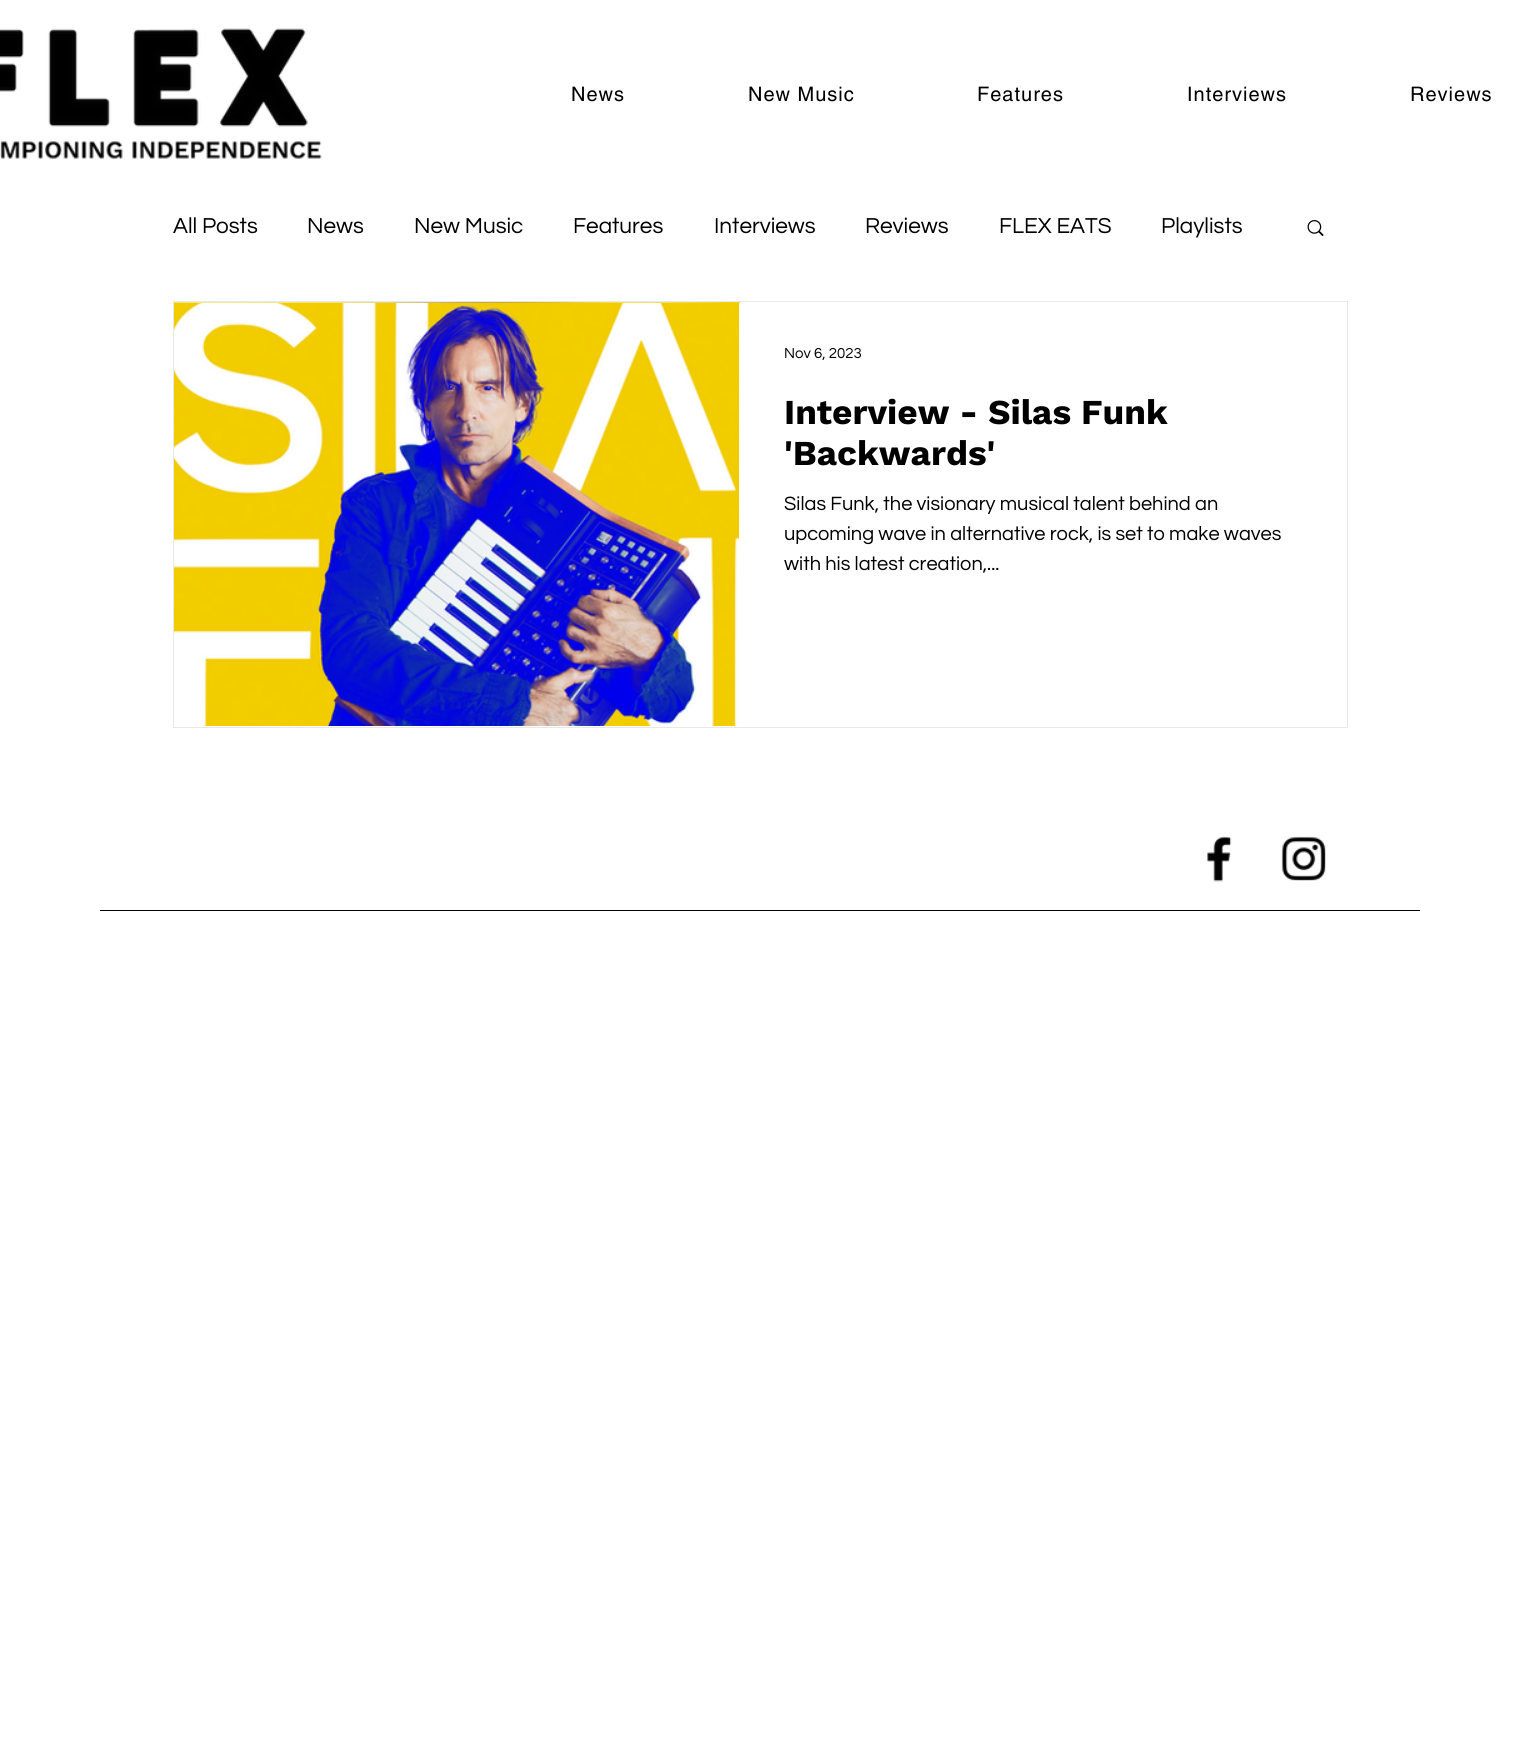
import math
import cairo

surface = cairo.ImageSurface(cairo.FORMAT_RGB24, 1519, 1763)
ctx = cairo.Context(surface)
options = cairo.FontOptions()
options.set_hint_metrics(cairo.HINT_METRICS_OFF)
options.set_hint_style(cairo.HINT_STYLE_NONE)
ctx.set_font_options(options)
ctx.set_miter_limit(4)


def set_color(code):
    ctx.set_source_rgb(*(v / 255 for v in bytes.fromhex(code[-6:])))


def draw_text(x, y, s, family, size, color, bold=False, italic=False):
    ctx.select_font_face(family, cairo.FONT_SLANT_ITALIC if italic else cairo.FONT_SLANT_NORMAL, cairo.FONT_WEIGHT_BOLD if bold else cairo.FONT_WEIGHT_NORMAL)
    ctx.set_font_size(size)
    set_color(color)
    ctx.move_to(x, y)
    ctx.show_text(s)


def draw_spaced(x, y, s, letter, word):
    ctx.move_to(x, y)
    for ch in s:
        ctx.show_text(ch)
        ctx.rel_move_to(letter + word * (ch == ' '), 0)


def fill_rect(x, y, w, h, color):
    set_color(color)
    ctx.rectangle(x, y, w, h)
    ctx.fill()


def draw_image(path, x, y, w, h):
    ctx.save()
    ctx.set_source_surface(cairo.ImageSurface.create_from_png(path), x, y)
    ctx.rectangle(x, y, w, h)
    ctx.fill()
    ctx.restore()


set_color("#ffffff")
ctx.paint()
draw_image("assets/img1.png", 0, 28, 322, 131)
ctx.select_font_face("helvetica")
ctx.set_font_size(20)
set_color("#000000")
draw_spaced(571, 101, "News", 1, 0)
draw_spaced(748, 101, "New Music", 1, 0)
draw_spaced(977, 101, "Features", 1, 0)
draw_spaced(1187, 101, "Interviews", 1, 0)
draw_spaced(1410, 101, "Reviews", 1, 0)
draw_text(173, 233, "All Posts", "Questrial", 22.5, "#000000")
draw_text(307, 233, "News", "Questrial", 22.5, "#000000")
draw_text(414, 233, "New Music", "Questrial", 22.5, "#000000")
draw_text(573, 233, "Features", "Questrial", 22.5, "#000000")
draw_text(714, 233, "Interviews", "Questrial", 22.5, "#000000")
draw_text(865, 233, "Reviews", "Questrial", 22.5, "#000000")
draw_text(999, 233, "FLEX EATS", "Questrial", 22.5, "#000000")
draw_text(1161, 233, "Playlists", "Questrial", 22.5, "#000000")
draw_image("assets/img2.png", 1307, 220, 17, 17)
ctx.rectangle(173.5, 301.5, 1174, 426)
set_color("#e8e8e8")
ctx.set_line_width(1)
ctx.stroke()
draw_image("assets/img3.png", 174, 302, 566, 1)
draw_image("assets/img4.png", 174, 303, 565, 423)
draw_text(784, 358, "Nov 6, 2023", "Questrial", 15, "#000000")
draw_text(784, 424, "Interview - Silas Funk", "Work Sans", 35, "#000000", bold=True)
draw_text(784, 465, "'Backwards'", "Work Sans", 35, "#000000", bold=True)
draw_text(784, 510, "Silas Funk, the visionary musical talent behind an", "Questrial", 20, "#000000")
draw_text(784, 540, "upcoming wave in alternative rock, is set to make waves", "Questrial", 20, "#000000")
draw_text(784, 570, "with his latest creation,...", "Questrial", 20, "#000000")
draw_image("assets/img5.png", 1206, 836, 26, 46)
draw_image("assets/img6.png", 1281, 836, 45, 45)
fill_rect(100, 910, 1320, 1, "#000000")
surface.write_to_png("output.png")
